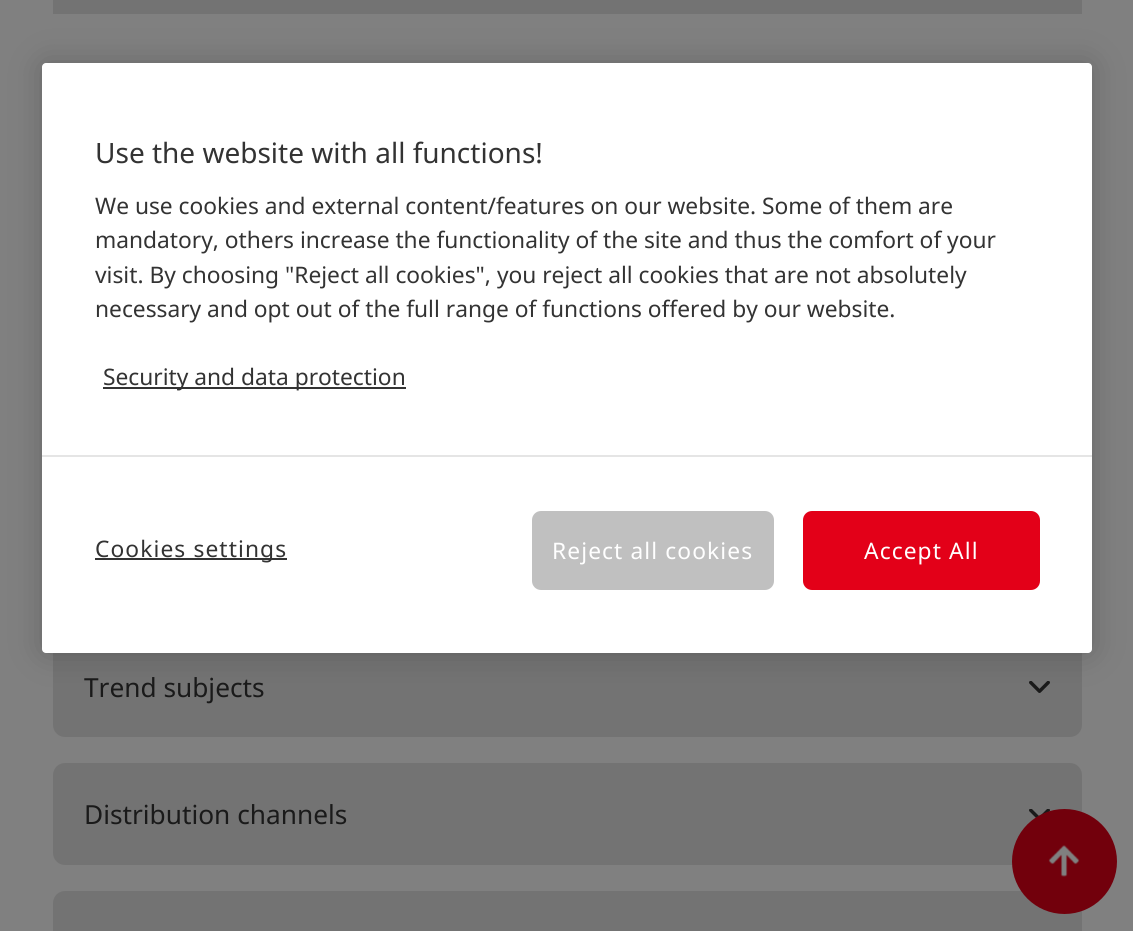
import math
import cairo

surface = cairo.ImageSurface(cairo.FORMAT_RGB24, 1133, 931)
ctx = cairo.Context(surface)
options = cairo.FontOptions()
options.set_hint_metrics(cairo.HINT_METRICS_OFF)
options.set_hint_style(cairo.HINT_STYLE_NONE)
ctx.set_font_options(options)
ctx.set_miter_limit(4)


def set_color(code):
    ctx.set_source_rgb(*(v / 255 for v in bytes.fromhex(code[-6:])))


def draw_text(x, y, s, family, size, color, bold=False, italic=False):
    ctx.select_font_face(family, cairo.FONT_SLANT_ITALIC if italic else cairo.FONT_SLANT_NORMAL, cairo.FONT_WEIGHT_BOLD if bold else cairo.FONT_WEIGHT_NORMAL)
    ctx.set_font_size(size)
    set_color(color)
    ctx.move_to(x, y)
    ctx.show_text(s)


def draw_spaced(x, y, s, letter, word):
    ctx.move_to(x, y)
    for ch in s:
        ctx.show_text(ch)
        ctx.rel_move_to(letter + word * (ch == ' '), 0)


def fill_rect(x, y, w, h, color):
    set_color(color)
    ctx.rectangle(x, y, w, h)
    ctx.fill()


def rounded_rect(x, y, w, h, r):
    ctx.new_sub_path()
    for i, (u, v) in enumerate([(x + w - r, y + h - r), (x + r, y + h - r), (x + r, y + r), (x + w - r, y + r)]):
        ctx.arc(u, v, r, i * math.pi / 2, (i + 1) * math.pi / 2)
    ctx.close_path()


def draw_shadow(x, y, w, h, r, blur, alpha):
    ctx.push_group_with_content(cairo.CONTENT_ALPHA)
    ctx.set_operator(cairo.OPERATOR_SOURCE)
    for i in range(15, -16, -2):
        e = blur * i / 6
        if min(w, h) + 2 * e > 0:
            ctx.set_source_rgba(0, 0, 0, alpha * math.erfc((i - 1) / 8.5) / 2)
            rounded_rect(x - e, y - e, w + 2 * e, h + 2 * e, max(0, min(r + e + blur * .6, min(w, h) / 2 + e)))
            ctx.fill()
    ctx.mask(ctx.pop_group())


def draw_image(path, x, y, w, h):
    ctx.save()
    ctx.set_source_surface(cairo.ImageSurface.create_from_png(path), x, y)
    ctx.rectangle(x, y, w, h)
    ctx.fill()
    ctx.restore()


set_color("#808080")
ctx.paint()
set_color("#737373")
rounded_rect(53, 635, 1029, 102, 12)
ctx.fill()
draw_image("assets/img1.png", 1029, 681, 21, 12)
set_color("#000000")
draw_shadow(42, 63, 1050, 590, 4, 16, 0.2)
set_color("#ffffff")
rounded_rect(42, 63, 1050, 590, 4)
ctx.fill()
draw_text(95, 163, "Use the website with all functions!", "Noto Sans", 28, "#333333")
draw_text(95, 214, "We use cookies and external content/features on our website. Some of them are", "Noto Sans", 22.75, "#333333")
draw_text(95, 248, "mandatory, others increase the functionality of the site and thus the comfort of your", "Noto Sans", 22.75, "#333333")
draw_text(95, 283, "visit. By choosing \"Reject all cookies\", you reject all cookies that are not absolutely", "Noto Sans", 22.75, "#333333")
draw_text(95, 317, "necessary and opt out of the full range of functions offered by our website.", "Noto Sans", 22.75, "#333333")
fill_rect(103, 387, 303, 2, "#333333")
draw_text(103, 385, "Security and data protection", "Noto Sans", 22.75, "#333333")
fill_rect(42, 455, 1050, 2, "#e5e5e5")
fill_rect(95, 558, 192, 2, "#333333")
draw_spaced(95, 557, "Cookies settings", 1.1, 0)
set_color("#c0c0c0")
rounded_rect(532, 511, 242, 79, 9)
ctx.fill()
set_color("#ffffff")
draw_spaced(552, 559, "Reject all cookies", 1.1, 0)
set_color("#e30018")
rounded_rect(804, 512, 235, 77, 8)
ctx.fill_preserve()
ctx.stroke()
set_color("#ffffff")
draw_spaced(864, 559, "Accept All", 1.1, 0)
fill_rect(53, 0, 1029, 14, "#737373")
draw_text(84, 697, "Trend subjects", "Noto Sans", 26.25, "#1a1a1a")
set_color("#737373")
rounded_rect(53, 763, 1029, 102, 12)
ctx.fill()
draw_text(84, 824, "Distribution channels", "Noto Sans", 26.25, "#1a1a1a")
draw_image("assets/img2.png", 1029, 809, 21, 9)
set_color("#737373")
rounded_rect(53, 891, 1029, 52, 12)
ctx.fill()
set_color("#72000c")
ctx.arc(1064.5, 861.5, 52.5, 0, 2 * math.pi)
ctx.fill()
draw_image("assets/img3.png", 1048, 845, 32, 32)
surface.write_to_png("output.png")
